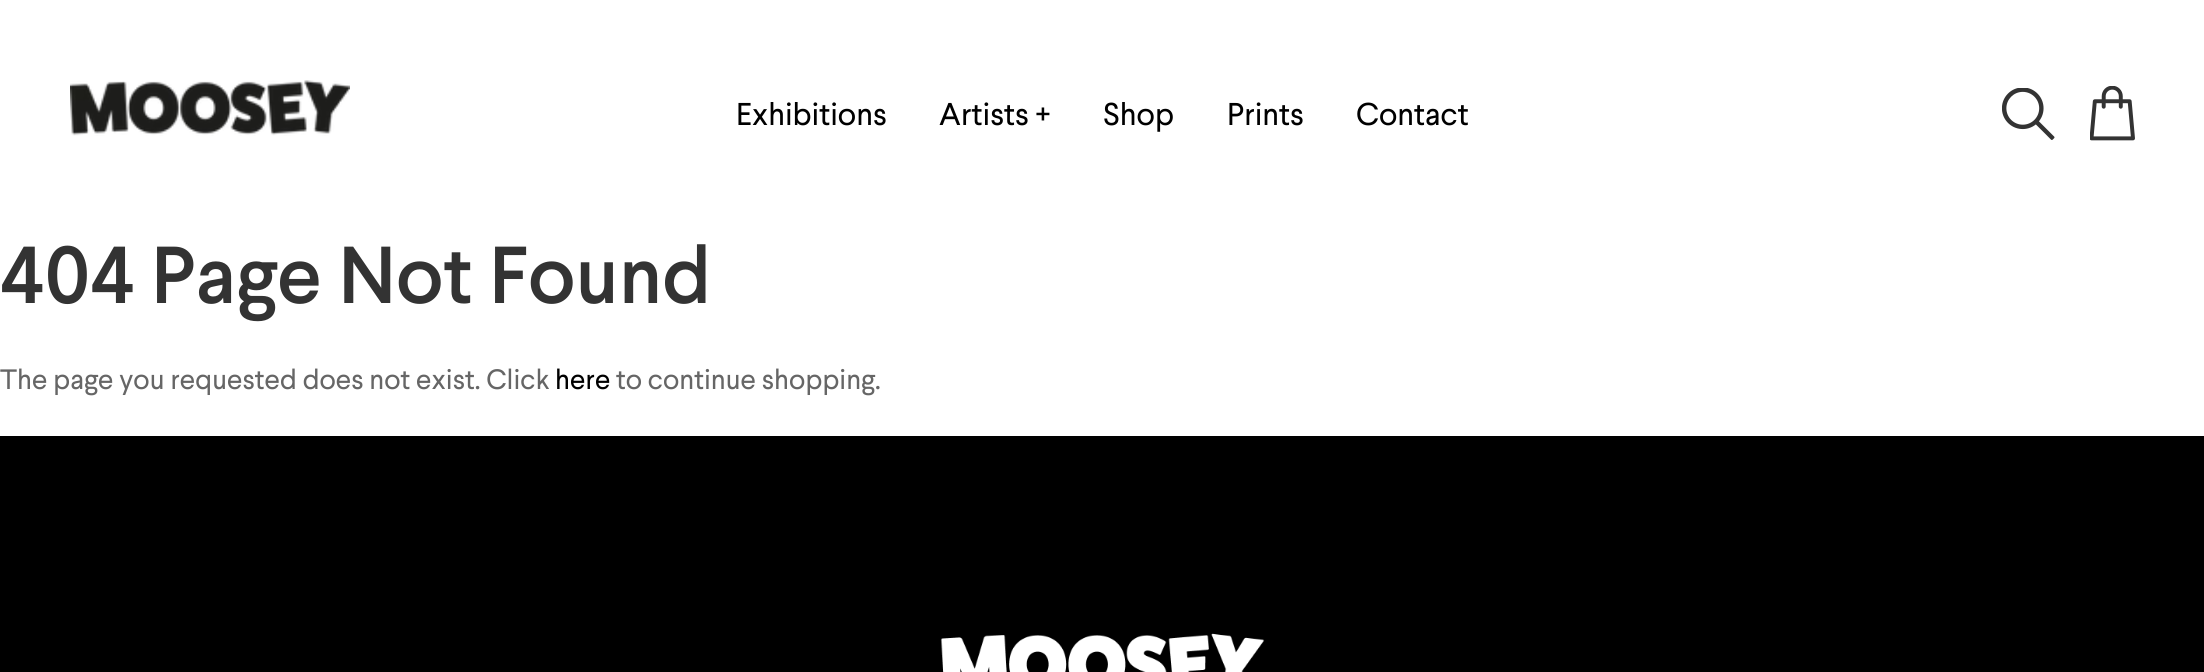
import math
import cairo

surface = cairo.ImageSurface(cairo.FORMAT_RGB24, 2204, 672)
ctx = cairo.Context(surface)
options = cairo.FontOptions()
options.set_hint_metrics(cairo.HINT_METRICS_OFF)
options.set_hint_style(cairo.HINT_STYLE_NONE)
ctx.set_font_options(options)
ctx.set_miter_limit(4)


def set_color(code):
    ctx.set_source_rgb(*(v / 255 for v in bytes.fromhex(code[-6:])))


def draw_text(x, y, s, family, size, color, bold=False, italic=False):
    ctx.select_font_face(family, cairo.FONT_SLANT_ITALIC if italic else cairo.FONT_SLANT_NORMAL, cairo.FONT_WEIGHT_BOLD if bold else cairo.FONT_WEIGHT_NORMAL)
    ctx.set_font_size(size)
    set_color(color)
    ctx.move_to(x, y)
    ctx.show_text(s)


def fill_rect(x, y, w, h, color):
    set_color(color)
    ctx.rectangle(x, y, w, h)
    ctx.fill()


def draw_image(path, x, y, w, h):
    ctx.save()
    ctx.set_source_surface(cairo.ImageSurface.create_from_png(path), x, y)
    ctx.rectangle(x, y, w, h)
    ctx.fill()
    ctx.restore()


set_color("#ffffff")
ctx.paint()
draw_image("assets/img1.png", 70, 80, 280, 56)
draw_text(736, 125, "Exhibitions", "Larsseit", 31.5, "#000000")
draw_text(939, 125, "Artists +", "Larsseit", 31.5, "#000000")
draw_text(1103, 125, "Shop", "Larsseit", 31.5, "#000000")
draw_text(1227, 125, "Prints", "Larsseit", 31.5, "#000000")
draw_text(1356, 125, "Contact", "Larsseit", 31.5, "#000000")
draw_image("assets/img2.png", 2002, 88, 53, 52)
draw_image("assets/img3.png", 2090, 86, 45, 55)
draw_text(0, 303, "404 Page Not Found", "Larsseit Medium", 80.5, "#333333")
draw_text(0, 389, "The page you requested does not exist. Click", "Larsseit", 28, "#666666")
draw_text(555, 389, "here", "Larsseit", 28, "#000000")
draw_text(616, 389, "to continue shopping.", "Larsseit", 28, "#666666")
fill_rect(0, 436, 2204, 236, "#000000")
draw_image("assets/img4.png", 940, 633, 325, 39)
surface.write_to_png("output.png")
